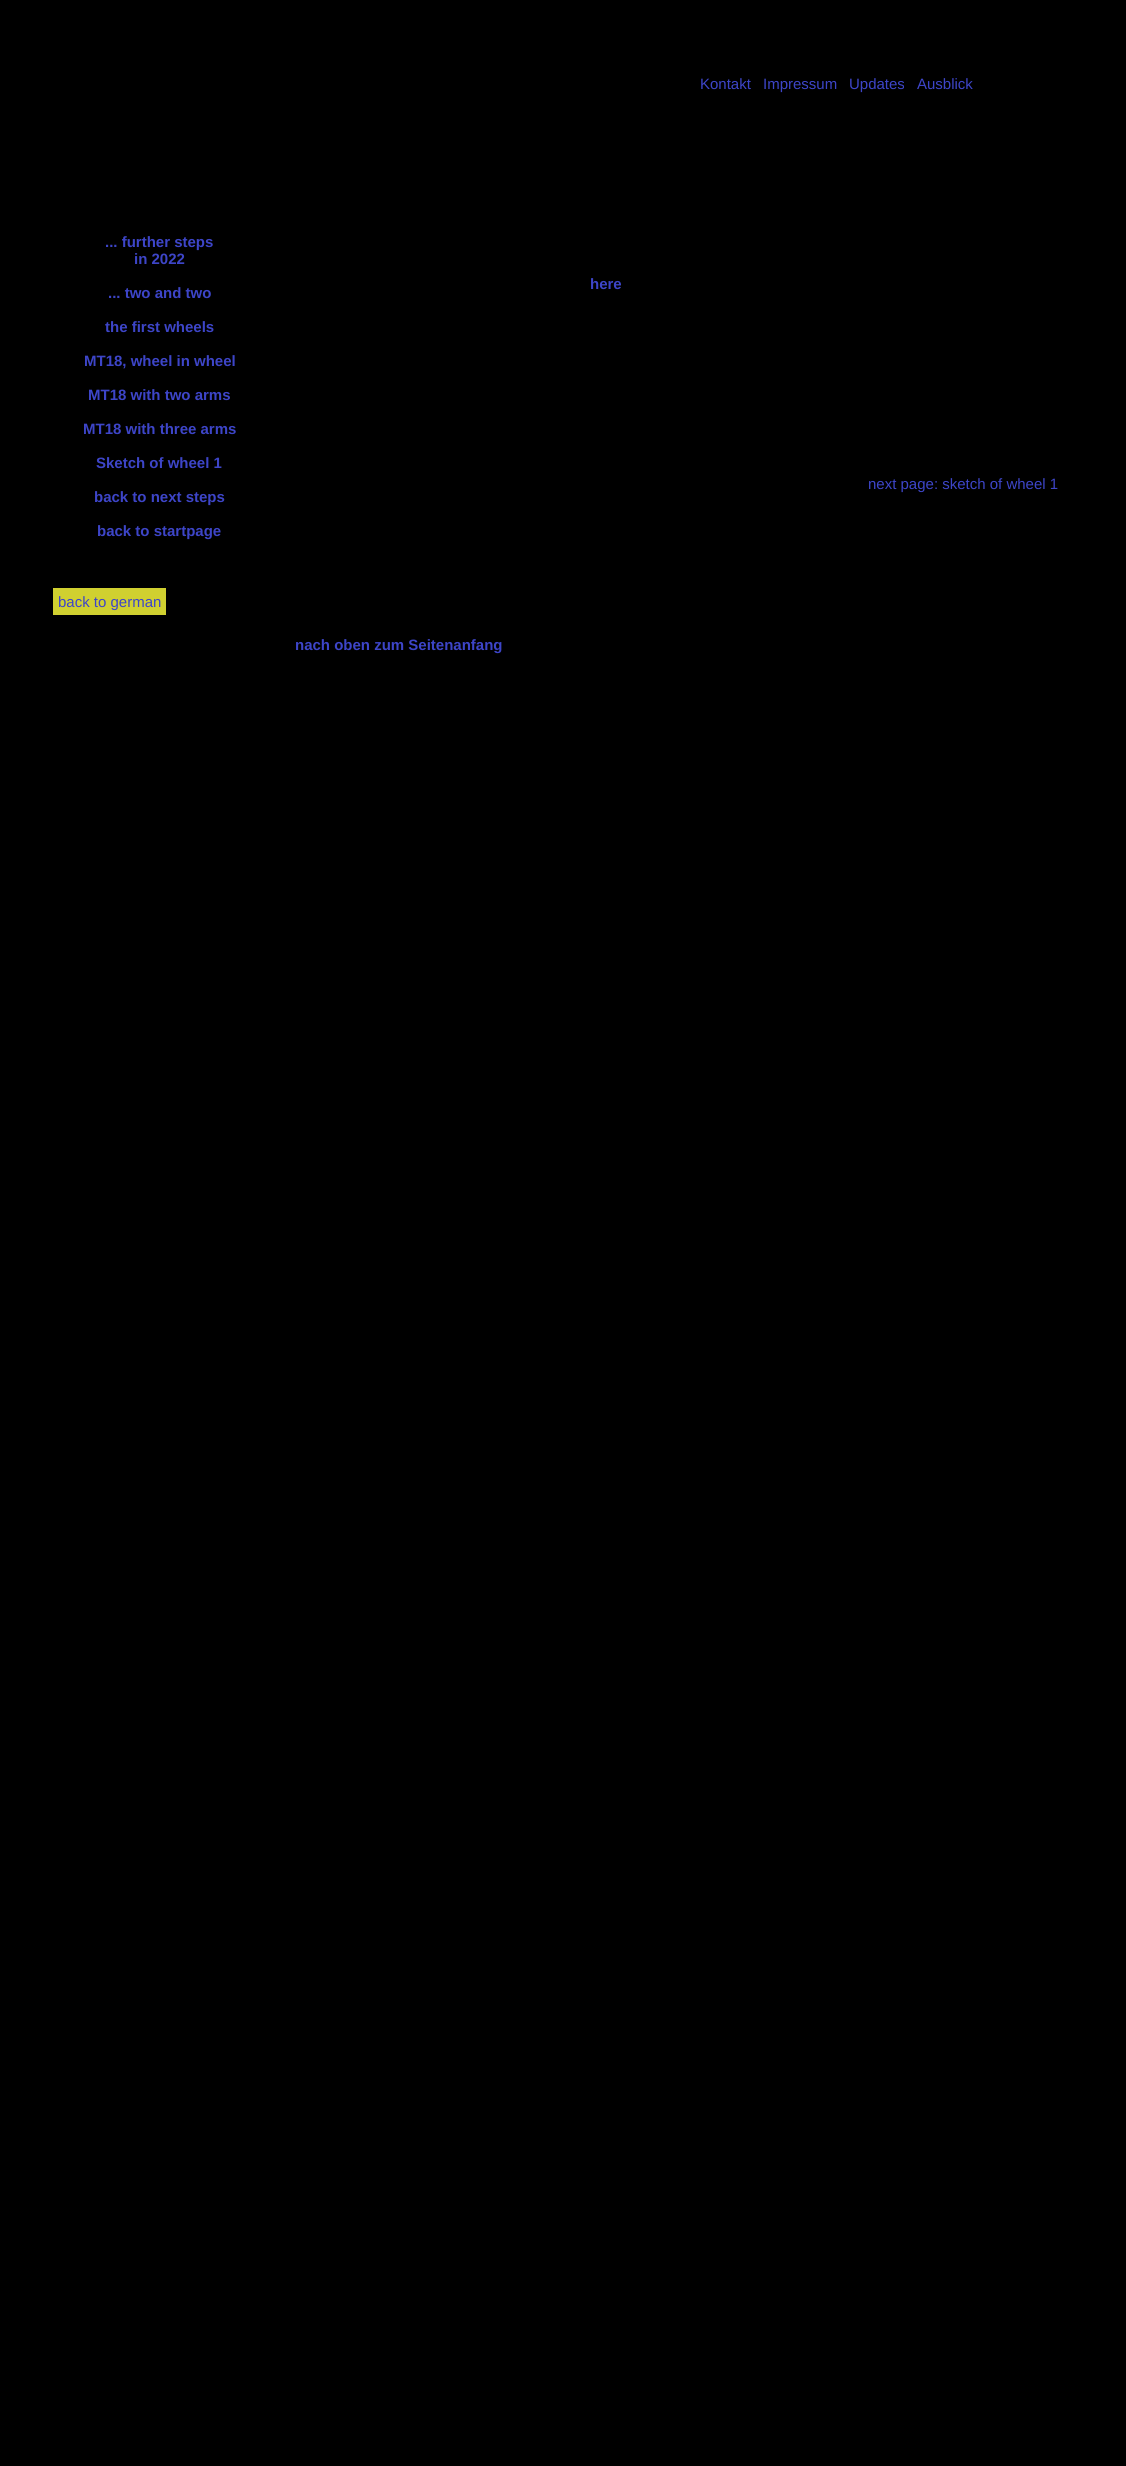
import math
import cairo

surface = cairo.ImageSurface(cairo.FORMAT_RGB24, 1126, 2466)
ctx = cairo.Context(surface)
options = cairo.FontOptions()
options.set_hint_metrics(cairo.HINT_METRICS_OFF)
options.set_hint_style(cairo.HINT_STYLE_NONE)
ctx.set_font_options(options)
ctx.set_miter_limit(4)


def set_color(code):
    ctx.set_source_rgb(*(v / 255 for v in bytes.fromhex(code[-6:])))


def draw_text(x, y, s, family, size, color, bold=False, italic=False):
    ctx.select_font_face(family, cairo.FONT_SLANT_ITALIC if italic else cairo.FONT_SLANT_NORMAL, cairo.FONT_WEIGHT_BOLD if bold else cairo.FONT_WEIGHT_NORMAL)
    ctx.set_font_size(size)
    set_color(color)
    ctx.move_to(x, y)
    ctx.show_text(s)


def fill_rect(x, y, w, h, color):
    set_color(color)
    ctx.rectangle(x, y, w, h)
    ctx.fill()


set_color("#000000")
ctx.paint()
draw_text(700, 89, "Kontakt", "Liberation Sans", 15, "#3d45c8")
draw_text(763, 89, "Impressum", "Liberation Sans", 15, "#3d45c8")
draw_text(849, 89, "Updates", "Liberation Sans", 15, "#3d45c8")
draw_text(917, 89, "Ausblick", "Liberation Sans", 15, "#3d45c8")
draw_text(105, 247, "... further steps", "Liberation Sans", 15, "#3d45c8", bold=True)
draw_text(134, 264, "in 2022", "Liberation Sans", 15, "#3d45c8", bold=True)
draw_text(108, 298, "... two and two", "Liberation Sans", 15, "#3d45c8", bold=True)
draw_text(105, 332, "the first wheels", "Liberation Sans", 15, "#3d45c8", bold=True)
draw_text(84, 366, "MT18, wheel in wheel", "Liberation Sans", 15, "#3d45c8", bold=True)
draw_text(88, 400, "MT18 with two arms", "Liberation Sans", 15, "#3d45c8", bold=True)
draw_text(83, 434, "MT18 with three arms", "Liberation Sans", 15, "#3d45c8", bold=True)
draw_text(96, 468, "Sketch of wheel 1", "Liberation Sans", 15, "#3d45c8", bold=True)
draw_text(94, 502, "back to next steps", "Liberation Sans", 15, "#3d45c8", bold=True)
draw_text(97, 536, "back to startpage", "Liberation Sans", 15, "#3d45c8", bold=True)
fill_rect(53, 588, 113, 27, "#d0d030")
draw_text(58, 607, "back to german", "Liberation Sans", 15, "#3d45c8")
draw_text(590, 289, "here", "Liberation Sans", 15, "#3d45c8", bold=True)
draw_text(868, 489, "next page: sketch of wheel 1", "Liberation Sans", 15, "#3d45c8")
draw_text(295, 650, "nach oben zum Seitenanfang", "Liberation Sans", 15, "#3d45c8", bold=True)
surface.write_to_png("output.png")
